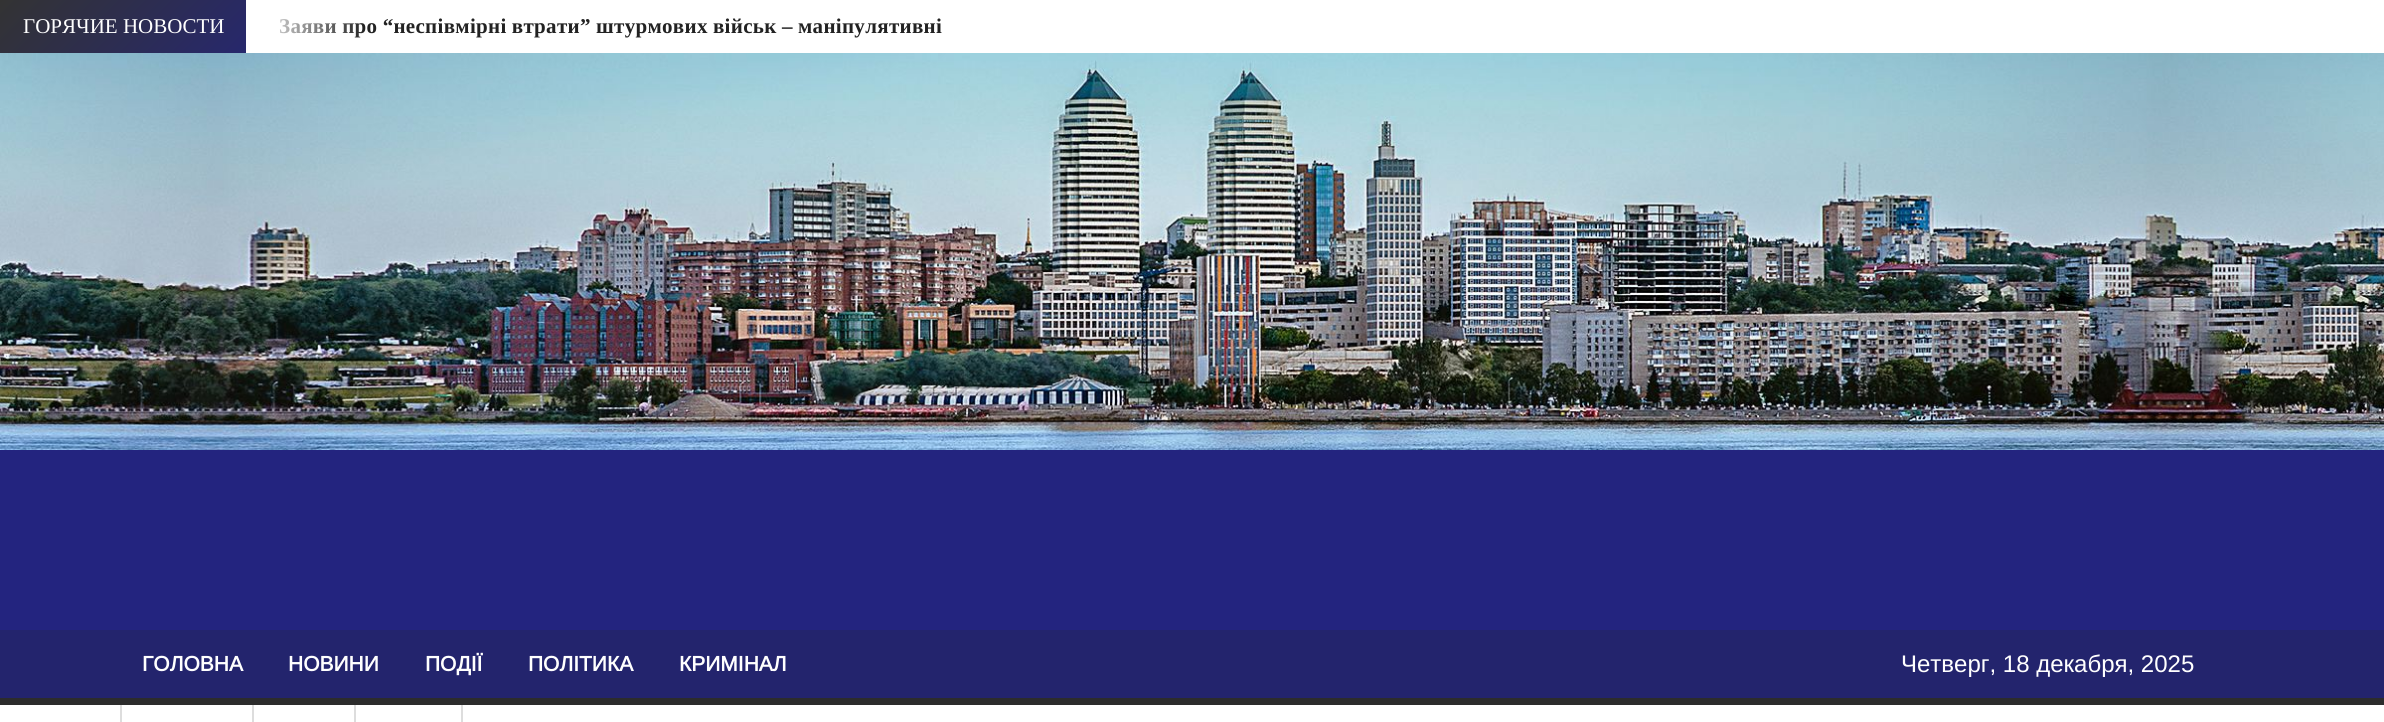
import math
import cairo

surface = cairo.ImageSurface(cairo.FORMAT_RGB24, 2384, 722)
ctx = cairo.Context(surface)
options = cairo.FontOptions()
options.set_hint_metrics(cairo.HINT_METRICS_OFF)
options.set_hint_style(cairo.HINT_STYLE_NONE)
ctx.set_font_options(options)
ctx.set_miter_limit(4)


def set_color(code):
    ctx.set_source_rgb(*(v / 255 for v in bytes.fromhex(code[-6:])))


def draw_text(x, y, s, family, size, color, bold=False, italic=False):
    ctx.select_font_face(family, cairo.FONT_SLANT_ITALIC if italic else cairo.FONT_SLANT_NORMAL, cairo.FONT_WEIGHT_BOLD if bold else cairo.FONT_WEIGHT_NORMAL)
    ctx.set_font_size(size)
    set_color(color)
    ctx.move_to(x, y)
    ctx.show_text(s)


def draw_spaced(x, y, s, letter, word):
    ctx.move_to(x, y)
    for ch in s:
        ctx.show_text(ch)
        ctx.rel_move_to(letter + word * (ch == ' '), 0)


def fill_rect(x, y, w, h, color):
    set_color(color)
    ctx.rectangle(x, y, w, h)
    ctx.fill()


def draw_image(path, x, y, w, h):
    ctx.save()
    ctx.set_source_surface(cairo.ImageSurface.create_from_png(path), x, y)
    ctx.rectangle(x, y, w, h)
    ctx.fill()
    ctx.restore()


set_color("#23247f")
ctx.paint()
fill_rect(247, 0, 2137, 53, "#ffffff")
gradient = cairo.LinearGradient(791, 404, 194, -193)
gradient.add_color_stop_rgba(0, 0.137, 0.141, 0.498, 1)
gradient.add_color_stop_rgba(0.33, 0.933, 0.933, 0.933, 1)
gradient.add_color_stop_rgba(0.67, 0.137, 0.141, 0.498, 1)
gradient.add_color_stop_rgba(1, 0.2, 0.2, 0.2, 1)
ctx.set_source(gradient)
ctx.rectangle(0, 0, 246, 53)
ctx.fill()
draw_text(23, 33, "ГОРЯЧИЕ НОВОСТИ", "Liberation Serif", 21, "#ffffff")
ctx.select_font_face("Liberation Serif", cairo.FONT_SLANT_NORMAL, cairo.FONT_WEIGHT_BOLD)
set_color("#222222")
draw_spaced(279, 33, "Заяви про “неспівмірні втрати” штурмових військ – маніпулятивні", 0.3, -0.25)
gradient = cairo.LinearGradient(246, 26, 366, 26)
gradient.add_color_stop_rgba(0, 1, 1, 1, 1)
gradient.add_color_stop_rgba(1, 1, 1, 1, 0)
ctx.set_source(gradient)
ctx.rectangle(246, 0, 117, 53)
ctx.fill()
draw_image("assets/img1.png", 0, 53, 2384, 397)
fill_rect(0, 630, 2384, 68, "#23246d")
fill_rect(0, 698, 2384, 7, "#2c2c2c")
draw_text(142, 671, "ГОЛОВНА", "Arimo", 21, "#ffffff", bold=True)
draw_text(288, 671, "НОВИНИ", "Arimo", 21, "#ffffff", bold=True)
draw_text(425, 671, "ПОДІЇ", "Arimo", 21, "#ffffff", bold=True)
draw_text(528, 671, "ПОЛІТИКА", "Arimo", 21, "#ffffff", bold=True)
draw_text(679, 671, "КРИМІНАЛ", "Arimo", 21, "#ffffff", bold=True)
draw_text(1901, 672, "Четверг, 18 декабря, 2025", "Arimo", 24, "#ffffff")
fill_rect(0, 705, 2384, 17, "#ffffff")
fill_rect(120, 705, 2, 17, "#dddddd")
fill_rect(252, 705, 2, 17, "#dddddd")
fill_rect(461, 705, 2, 17, "#dddddd")
fill_rect(354, 705, 2, 17, "#dddddd")
surface.write_to_png("output.png")
